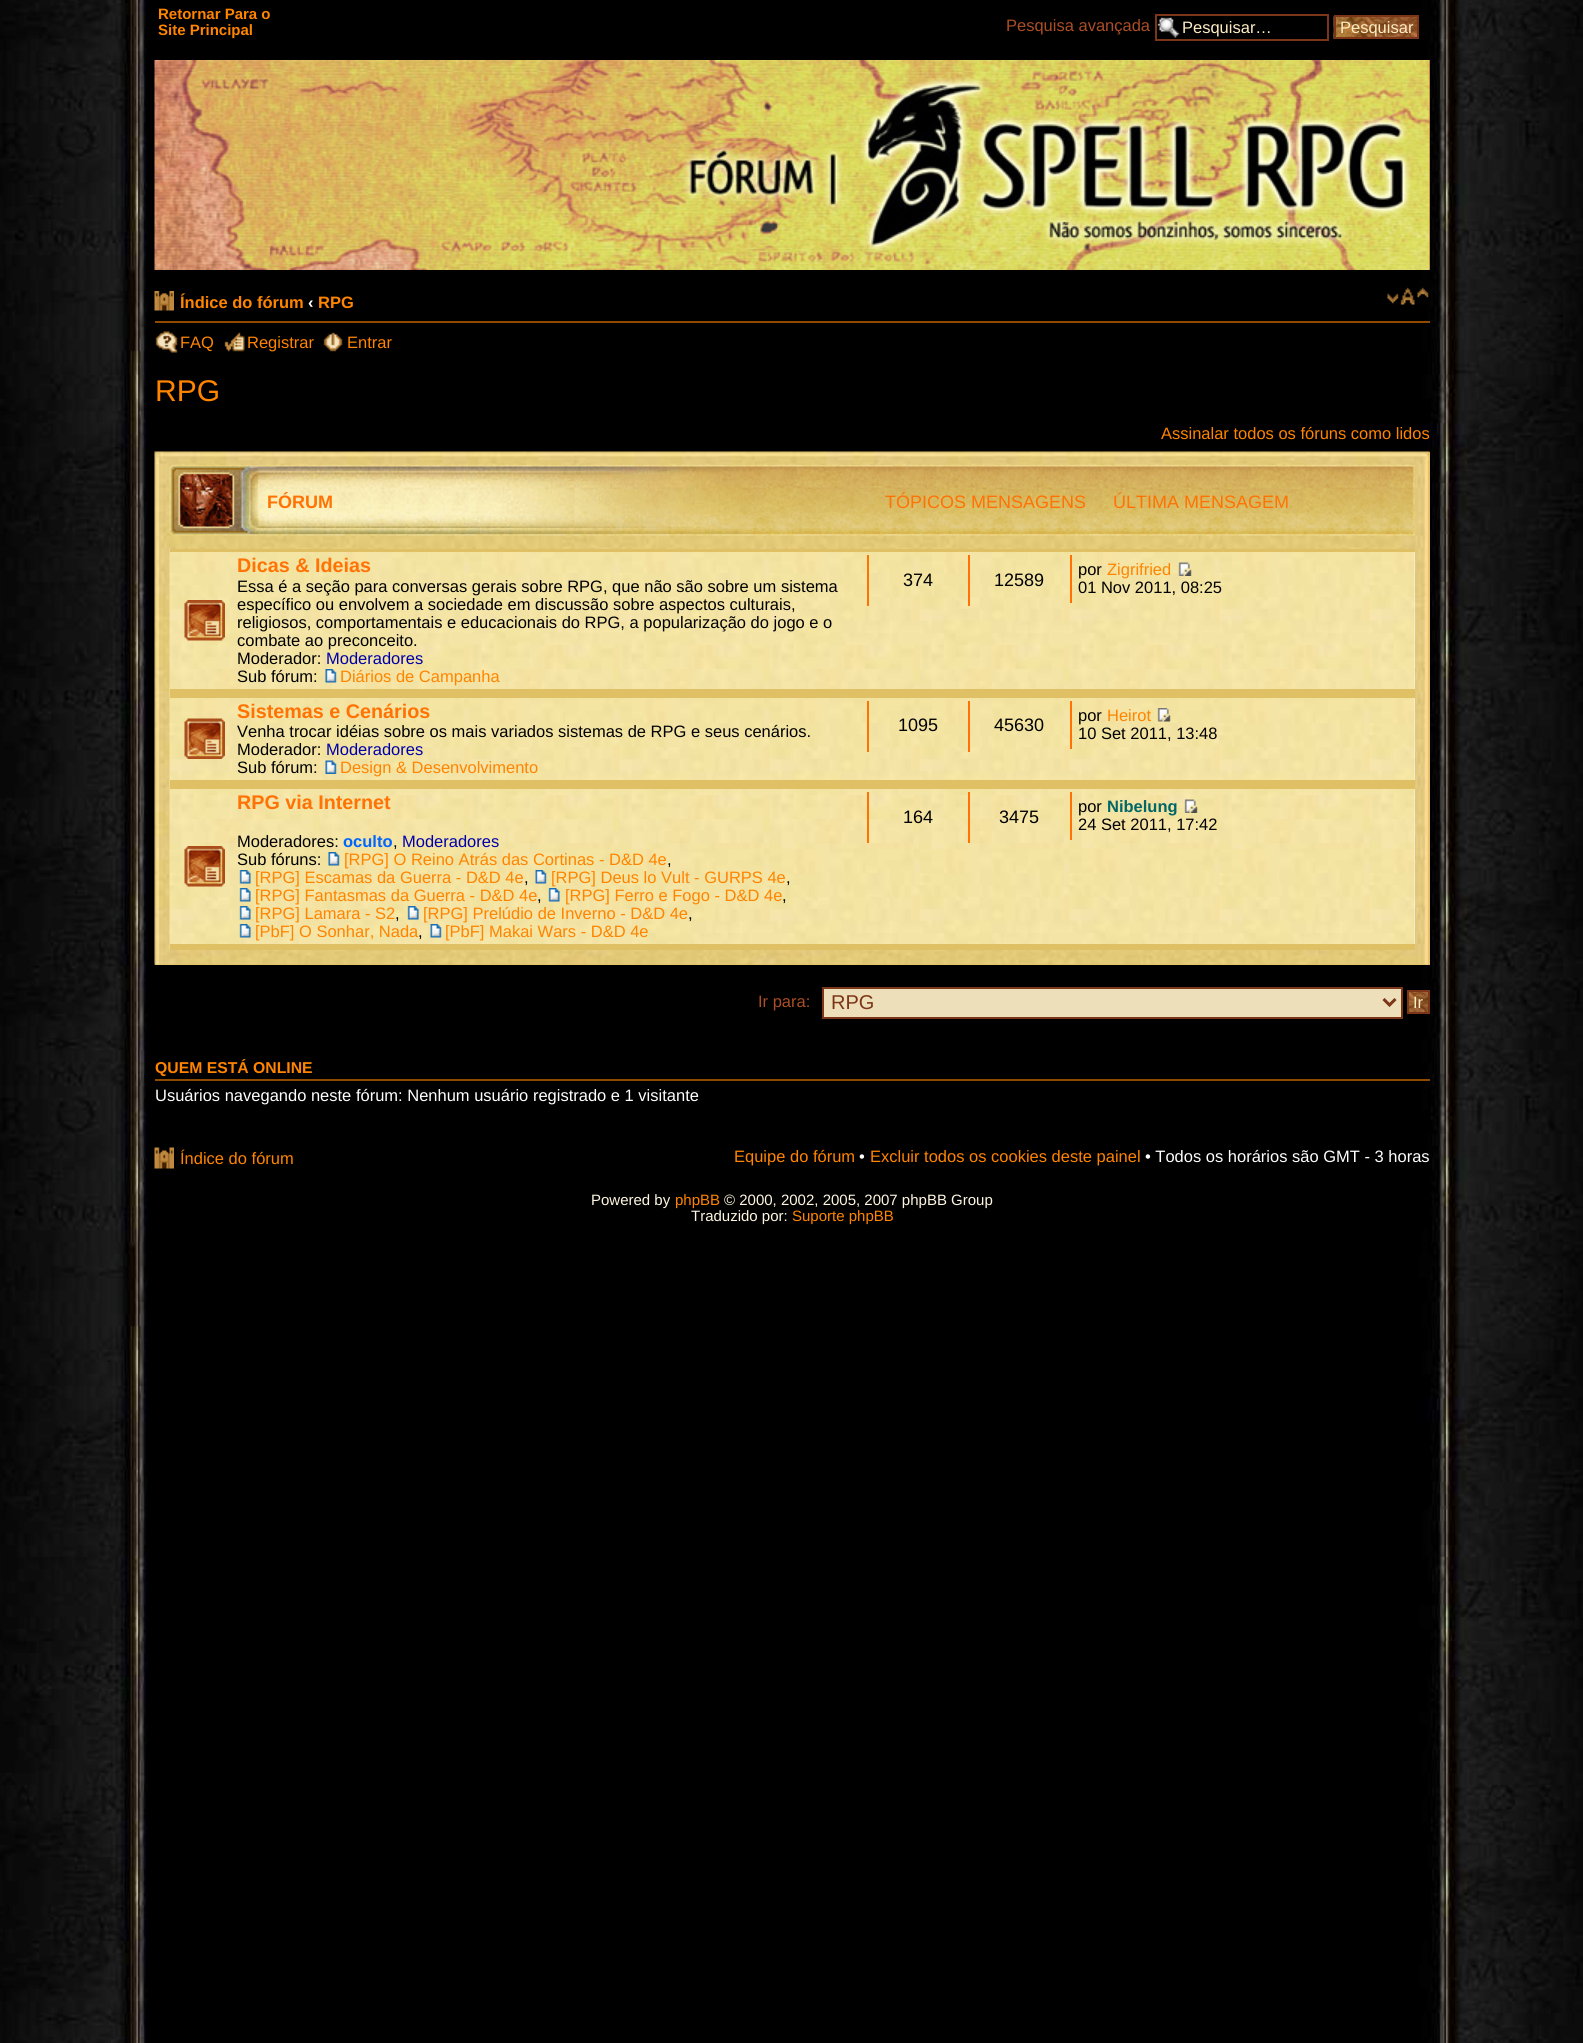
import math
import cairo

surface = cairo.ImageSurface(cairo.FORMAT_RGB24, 1583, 2043)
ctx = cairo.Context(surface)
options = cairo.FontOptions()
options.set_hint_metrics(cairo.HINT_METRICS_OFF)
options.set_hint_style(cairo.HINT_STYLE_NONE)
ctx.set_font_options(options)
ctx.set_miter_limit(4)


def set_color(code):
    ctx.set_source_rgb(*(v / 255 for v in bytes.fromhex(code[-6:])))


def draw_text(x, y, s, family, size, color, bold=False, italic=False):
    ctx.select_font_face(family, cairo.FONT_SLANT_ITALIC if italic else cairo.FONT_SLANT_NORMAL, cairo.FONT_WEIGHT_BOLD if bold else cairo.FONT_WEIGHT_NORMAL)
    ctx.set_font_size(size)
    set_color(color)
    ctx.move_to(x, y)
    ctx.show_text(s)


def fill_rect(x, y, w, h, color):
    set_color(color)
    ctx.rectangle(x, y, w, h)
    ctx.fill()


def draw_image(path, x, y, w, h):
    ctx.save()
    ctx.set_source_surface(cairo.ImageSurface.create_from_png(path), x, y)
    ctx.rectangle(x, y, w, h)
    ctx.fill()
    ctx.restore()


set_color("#ffffff")
ctx.paint()
draw_image("assets/img1.png", 0, 1248, 1583, 795)
draw_image("assets/img2.png", 0, 0, 1583, 1248)
draw_text(158, 19, "Retornar Para o", "Liberation Sans", 15, "#ff8400", bold=True)
draw_text(158, 35, "Site Principal", "Liberation Sans", 15, "#ff8400", bold=True)
draw_text(1006, 31, "Pesquisa avançada", "Liberation Sans", 16.5, "#ab4e25")
draw_image("assets/img3.png", 1157, 17, 23, 21)
ctx.rectangle(1156, 15, 172, 25)
set_color("#7d3519")
ctx.stroke()
draw_text(1182, 33, "Pesquisar…", "Liberation Sans", 16.5, "#feedc1")
draw_image("assets/img4.png", 1333, 16, 84, 23)
ctx.rectangle(1335, 16, 83, 22)
set_color("#7d3519")
ctx.stroke()
draw_text(1340, 33, "Pesquisar", "Liberation Sans", 16.5, "#feedc1")
fill_rect(1429, 60, 1, 210, "#ab4e25")
draw_image("assets/img5.png", 154, 60, 1276, 210)
fill_rect(155, 321, 1275, 2, "#904a00")
draw_image("assets/img6.png", 154, 291, 20, 20)
draw_text(180, 308, "Índice do fórum", "Liberation Sans", 16.5, "#ff8400", bold=True)
draw_text(308, 308, "‹", "Liberation Sans", 16.5, "#ffffff", bold=True)
draw_text(318, 308, "RPG", "Liberation Sans", 16.5, "#ff8400", bold=True)
draw_image("assets/img7.png", 1387, 287, 42, 18)
draw_image("assets/img8.png", 155, 331, 23, 22)
draw_text(180, 348, "FAQ", "Liberation Sans", 16.5, "#ff8400")
draw_image("assets/img9.png", 224, 332, 21, 20)
draw_text(247, 348, "Registrar", "Liberation Sans", 16.5, "#ff8400")
draw_image("assets/img10.png", 323, 332, 20, 20)
draw_text(347, 348, "Entrar", "Liberation Sans", 16.5, "#ff8400")
draw_text(155, 401, "RPG", "Liberation Sans", 30, "#ff8400")
draw_text(1161, 439, "Assinalar todos os fóruns como lidos", "Liberation Sans", 16.5, "#ff8400")
fill_rect(155, 452, 1275, 513, "#dfc065")
draw_image("assets/img11.png", 154, 451, 1276, 514)
draw_image("assets/img12.png", 169, 464, 1246, 72)
draw_text(267, 508, "FÓRUM", "Liberation Sans", 18, "#ff7203", bold=True)
draw_text(885, 508, "TÓPICOS MENSAGENS", "Liberation Sans", 18, "#ff7203")
draw_text(1113, 508, "ÚLTIMA MENSAGEM", "Liberation Sans", 18, "#ff7203")
fill_rect(1414, 552, 1, 392, "#eef5f9")
draw_image("assets/img13.png", 169, 549, 1246, 401)
fill_rect(170, 549, 1245, 3, "#dfc065")
fill_rect(170, 689, 1245, 9, "#dfc065")
draw_image("assets/img14.png", 184, 600, 41, 41)
draw_text(237, 572, "Dicas & Ideias", "Liberation Sans", 19.75, "#ff7203", bold=True)
draw_text(237, 592, "Essa é a seção para conversas gerais sobre RPG, que não são sobre um sistema", "Liberation Sans", 16.5, "#000000")
draw_text(237, 610, "específico ou envolvem a sociedade em discussão sobre aspectos culturais,", "Liberation Sans", 16.5, "#000000")
draw_text(237, 628, "religiosos, comportamentais e educacionais do RPG, a popularização do jogo e o", "Liberation Sans", 16.5, "#000000")
draw_text(237, 646, "combate ao preconceito.", "Liberation Sans", 16.5, "#000000")
draw_text(237, 664, "Moderador:", "Liberation Sans", 16.5, "#000000")
draw_text(326, 664, "Moderadores", "Liberation Sans", 16.5, "#0000aa")
draw_text(237, 682, "Sub fórum:", "Liberation Sans", 16.5, "#000000")
draw_image("assets/img15.png", 325, 669, 12, 14)
draw_text(340, 682, "Diários de Campanha", "Liberation Sans", 16.5, "#ff8400")
fill_rect(867, 555, 2, 51, "#ff7203")
draw_text(903, 586, "374", "Liberation Sans", 18, "#000000")
fill_rect(968, 555, 2, 51, "#ff7203")
draw_text(994, 586, "12589", "Liberation Sans", 18, "#000000")
fill_rect(1070, 555, 2, 48, "#ff7203")
draw_text(1078, 575, "por", "Liberation Sans", 16.5, "#000000")
draw_text(1107, 575, "Zigrifried", "Liberation Sans", 16.5, "#ff8400")
draw_image("assets/img16.png", 1178, 562, 14, 14)
draw_text(1078, 593, "01 Nov 2011, 08:25", "Liberation Sans", 16.5, "#000000")
fill_rect(170, 780, 1245, 9, "#dfc065")
draw_image("assets/img17.png", 184, 718, 41, 41)
draw_text(237, 718, "Sistemas e Cenários", "Liberation Sans", 19.75, "#ff7203", bold=True)
draw_text(237, 737, "Venha trocar idéias sobre os mais variados sistemas de RPG e seus cenários.", "Liberation Sans", 16.5, "#000000")
draw_text(237, 755, "Moderador:", "Liberation Sans", 16.5, "#000000")
draw_text(326, 755, "Moderadores", "Liberation Sans", 16.5, "#0000aa")
draw_text(237, 773, "Sub fórum:", "Liberation Sans", 16.5, "#000000")
draw_image("assets/img18.png", 325, 760, 12, 14)
draw_text(340, 773, "Design & Desenvolvimento", "Liberation Sans", 16.5, "#ff8400")
fill_rect(867, 701, 2, 51, "#ff7203")
draw_text(898, 731, "1095", "Liberation Sans", 18, "#000000")
fill_rect(968, 701, 2, 51, "#ff7203")
draw_text(994, 731, "45630", "Liberation Sans", 18, "#000000")
fill_rect(1070, 701, 2, 48, "#ff7203")
draw_text(1078, 721, "por", "Liberation Sans", 16.5, "#000000")
draw_text(1107, 721, "Heirot", "Liberation Sans", 16.5, "#ff8400")
draw_image("assets/img19.png", 1157, 708, 14, 14)
draw_text(1078, 739, "10 Set 2011, 13:48", "Liberation Sans", 16.5, "#000000")
fill_rect(170, 944, 1245, 6, "#dfc065")
draw_image("assets/img20.png", 184, 846, 41, 41)
draw_text(237, 809, "RPG via Internet", "Liberation Sans", 19.75, "#ff7203", bold=True)
draw_text(237, 847, "Moderadores:", "Liberation Sans", 16.5, "#000000")
draw_text(343, 847, "oculto", "Liberation Sans", 16.5, "#0066ff", bold=True)
draw_text(393, 847, ",", "Liberation Sans", 16.5, "#000000")
draw_text(402, 847, "Moderadores", "Liberation Sans", 16.5, "#0000aa")
draw_text(237, 865, "Sub fóruns:", "Liberation Sans", 16.5, "#000000")
draw_image("assets/img21.png", 328, 852, 12, 14)
draw_text(344, 865, "[RPG] O Reino Atrás das Cortinas - D&D 4e", "Liberation Sans", 16.5, "#ff8400")
draw_text(667, 865, ",", "Liberation Sans", 16.5, "#000000")
draw_image("assets/img22.png", 239, 870, 12, 14)
draw_text(255, 883, "[RPG] Escamas da Guerra - D&D 4e", "Liberation Sans", 16.5, "#ff8400")
draw_text(524, 883, ",", "Liberation Sans", 16.5, "#000000")
draw_image("assets/img23.png", 535, 870, 12, 14)
draw_text(551, 883, "[RPG] Deus lo Vult - GURPS 4e", "Liberation Sans", 16.5, "#ff8400")
draw_text(786, 883, ",", "Liberation Sans", 16.5, "#000000")
draw_image("assets/img24.png", 239, 888, 12, 14)
draw_text(255, 901, "[RPG] Fantasmas da Guerra - D&D 4e", "Liberation Sans", 16.5, "#ff8400")
draw_text(537, 901, ",", "Liberation Sans", 16.5, "#000000")
draw_image("assets/img25.png", 548, 888, 12, 14)
draw_text(565, 901, "[RPG] Ferro e Fogo - D&D 4e", "Liberation Sans", 16.5, "#ff8400")
draw_text(782, 901, ",", "Liberation Sans", 16.5, "#000000")
draw_image("assets/img26.png", 239, 906, 12, 14)
draw_text(255, 919, "[RPG] Lamara - S2", "Liberation Sans", 16.5, "#ff8400")
draw_text(395, 919, ",", "Liberation Sans", 16.5, "#000000")
draw_image("assets/img27.png", 407, 906, 12, 14)
draw_text(423, 919, "[RPG] Prelúdio de Inverno - D&D 4e", "Liberation Sans", 16.5, "#ff8400")
draw_text(688, 919, ",", "Liberation Sans", 16.5, "#000000")
draw_image("assets/img28.png", 239, 924, 12, 14)
draw_text(255, 937, "[PbF] O Sonhar, Nada", "Liberation Sans", 16.5, "#ff8400")
draw_text(418, 937, ",", "Liberation Sans", 16.5, "#000000")
draw_image("assets/img29.png", 430, 924, 12, 14)
draw_text(445, 937, "[PbF] Makai Wars - D&D 4e", "Liberation Sans", 16.5, "#ff8400")
fill_rect(867, 792, 2, 51, "#ff7203")
draw_text(903, 823, "164", "Liberation Sans", 18, "#000000")
fill_rect(968, 792, 2, 51, "#ff7203")
draw_text(999, 823, "3475", "Liberation Sans", 18, "#000000")
fill_rect(1070, 792, 2, 48, "#ff7203")
draw_text(1078, 812, "por", "Liberation Sans", 16.5, "#000000")
draw_text(1107, 812, "Nibelung", "Liberation Sans", 16.5, "#006666", bold=True)
draw_image("assets/img30.png", 1184, 799, 14, 14)
draw_text(1078, 830, "24 Set 2011, 17:42", "Liberation Sans", 16.5, "#000000")
draw_text(758, 1007, "Ir para:", "Liberation Sans", 16.5, "#ab4e25")
set_color("#eddfba")
ctx.rectangle(823, 988, 579, 30)
ctx.fill_preserve()
set_color("#7d3519")
ctx.stroke()
ctx.new_path()
ctx.move_to(1383.5, 999)
ctx.line_to(1389.5, 1005)
ctx.line_to(1395.5, 999)
ctx.set_line_width(3)
ctx.stroke()
draw_text(831, 1009, "RPG", "Liberation Sans", 20, "#7d3519")
draw_image("assets/img31.png", 1409, 992, 19, 20)
ctx.rectangle(1408, 991, 21, 22)
ctx.set_line_width(2)
ctx.stroke()
draw_text(1413, 1008, "Ir", "Liberation Sans", 16.5, "#feedc1")
fill_rect(155, 1079, 1275, 2, "#904a00")
draw_text(155, 1073, "QUEM ESTÁ ONLINE", "Liberation Sans", 15.75, "#ff8400", bold=True)
draw_text(155, 1101, "Usuários navegando neste fórum: Nenhum usuário registrado e 1 visitante", "Liberation Sans", 16.5, "#ffffff")
draw_image("assets/img32.png", 154, 1147, 20, 22)
draw_text(180, 1164, "Índice do fórum", "Liberation Sans", 16.5, "#ff8400")
draw_text(734, 1162, "Equipe do fórum", "Liberation Sans", 16.5, "#ff8400")
draw_text(859, 1162, "•", "Liberation Sans", 16.5, "#ffffff")
draw_text(870, 1162, "Excluir todos os cookies deste painel", "Liberation Sans", 16.5, "#ff8400")
draw_text(1145, 1162, "• Todos os horários são GMT - 3 horas", "Liberation Sans", 16.5, "#ffffff")
draw_text(591, 1205, "Powered by", "Liberation Sans", 15, "#fef6e0")
draw_text(675, 1205, "phpBB", "Liberation Sans", 15, "#ff8400")
draw_text(724, 1205, "© 2000, 2002, 2005, 2007 phpBB Group", "Liberation Sans", 15, "#fef6e0")
draw_text(691, 1221, "Traduzido por:", "Liberation Sans", 15, "#fef6e0")
draw_text(792, 1221, "Suporte phpBB", "Liberation Sans", 15, "#ff8400")
surface.write_to_png("output.png")
